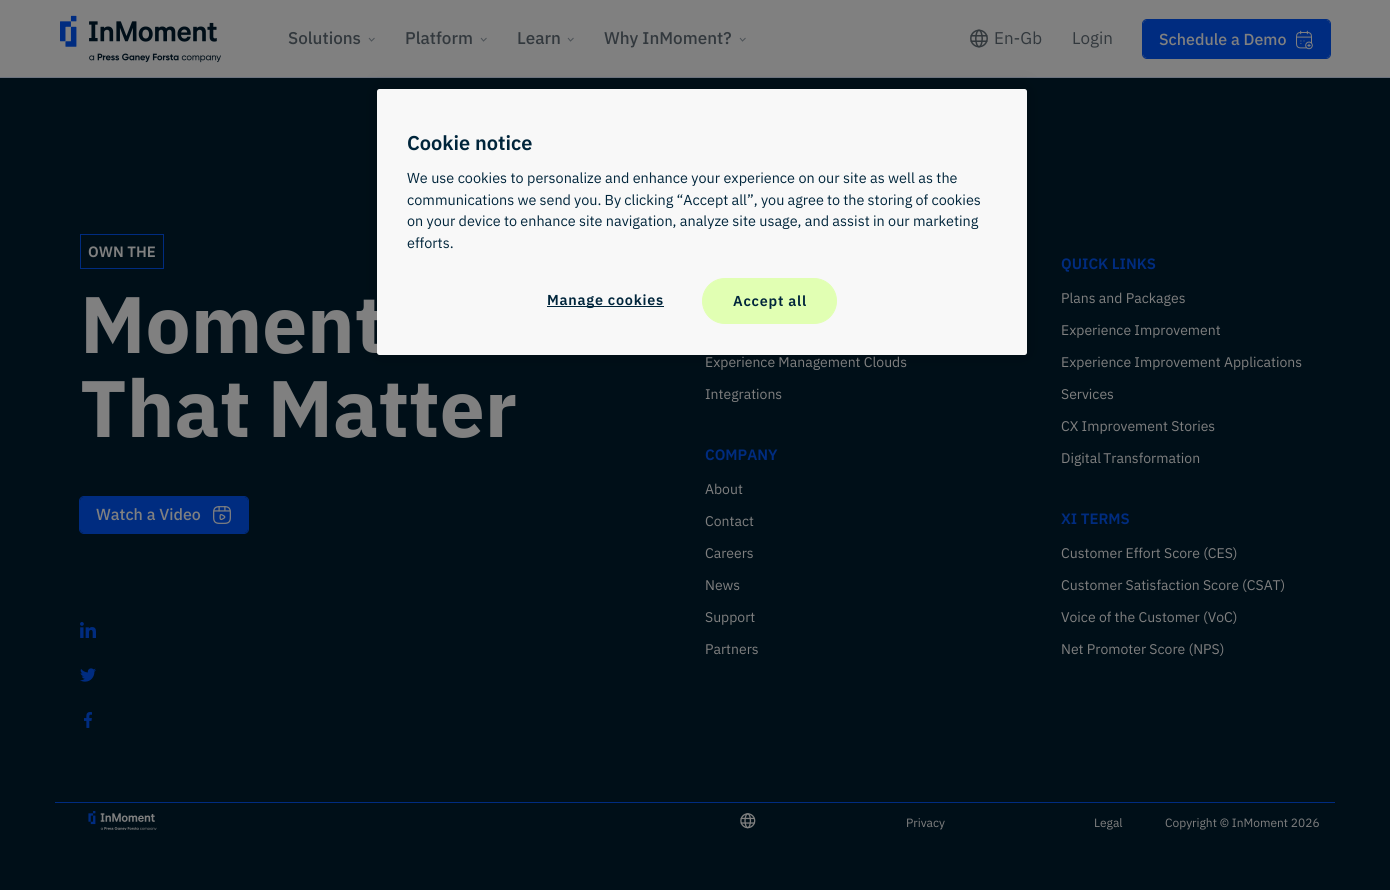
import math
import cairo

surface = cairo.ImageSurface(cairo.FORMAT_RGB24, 1390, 890)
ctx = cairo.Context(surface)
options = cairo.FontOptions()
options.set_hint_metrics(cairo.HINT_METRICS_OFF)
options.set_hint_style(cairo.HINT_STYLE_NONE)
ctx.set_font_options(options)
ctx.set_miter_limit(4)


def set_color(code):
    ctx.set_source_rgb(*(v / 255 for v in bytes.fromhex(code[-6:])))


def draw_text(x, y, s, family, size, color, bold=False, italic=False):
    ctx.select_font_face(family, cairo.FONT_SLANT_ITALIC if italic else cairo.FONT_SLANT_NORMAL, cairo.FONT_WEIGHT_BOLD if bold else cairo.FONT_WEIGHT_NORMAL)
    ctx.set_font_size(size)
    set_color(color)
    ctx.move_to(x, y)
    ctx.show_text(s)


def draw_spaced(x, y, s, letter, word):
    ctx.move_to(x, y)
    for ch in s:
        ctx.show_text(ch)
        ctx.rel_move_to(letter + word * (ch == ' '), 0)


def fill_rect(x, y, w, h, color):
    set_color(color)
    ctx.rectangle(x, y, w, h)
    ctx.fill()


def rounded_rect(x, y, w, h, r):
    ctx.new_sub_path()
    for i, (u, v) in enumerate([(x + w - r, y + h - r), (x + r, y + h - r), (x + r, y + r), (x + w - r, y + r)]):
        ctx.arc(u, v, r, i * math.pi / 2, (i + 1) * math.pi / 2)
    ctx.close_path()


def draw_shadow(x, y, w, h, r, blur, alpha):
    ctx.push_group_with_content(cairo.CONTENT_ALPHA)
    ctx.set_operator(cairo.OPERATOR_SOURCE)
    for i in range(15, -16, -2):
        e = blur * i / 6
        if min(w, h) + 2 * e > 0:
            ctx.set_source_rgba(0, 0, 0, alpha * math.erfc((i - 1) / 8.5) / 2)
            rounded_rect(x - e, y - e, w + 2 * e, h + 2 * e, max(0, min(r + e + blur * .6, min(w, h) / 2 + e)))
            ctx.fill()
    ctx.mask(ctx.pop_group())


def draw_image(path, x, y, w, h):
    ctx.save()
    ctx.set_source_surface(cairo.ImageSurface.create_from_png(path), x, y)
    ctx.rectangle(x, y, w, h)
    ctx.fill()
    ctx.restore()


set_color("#000f18")
ctx.paint()
fill_rect(0, 0, 1390, 77, "#808080")
draw_image("assets/img1.png", 60, 15, 161, 48)
draw_text(288, 44, "Solutions", "IBM Plex Sans Medium", 17, "#32383d")
ctx.new_path()
ctx.move_to(374.5, 38)
ctx.line_to(371.5, 41)
ctx.line_to(369, 38)
set_color("#4b5156")
ctx.set_line_width(1)
ctx.stroke()
draw_text(405, 44, "Platform", "IBM Plex Sans Medium", 17, "#32383d")
ctx.new_path()
ctx.move_to(486.5, 38)
ctx.line_to(483.5, 41)
ctx.line_to(481, 38)
set_color("#4b5156")
ctx.stroke()
draw_text(517, 44, "Learn", "IBM Plex Sans Medium", 17, "#32383d")
ctx.new_path()
ctx.move_to(573.5, 38)
ctx.line_to(570.5, 41)
ctx.line_to(568, 38)
set_color("#4b5156")
ctx.stroke()
draw_text(604, 44, "Why InMoment?", "IBM Plex Sans Medium", 17, "#32383d")
ctx.new_path()
ctx.move_to(745.5, 38)
ctx.line_to(742.5, 41)
ctx.line_to(740, 38)
set_color("#4b5156")
ctx.stroke()
draw_image("assets/img2.png", 970, 29, 18, 19)
draw_text(994, 44, "En-Gb", "IBM Plex Sans", 17, "#32383d")
draw_text(1072, 44, "Login", "IBM Plex Sans", 17, "#32383d")
rounded_rect(1142.5, 19.5, 188, 39, 4.5)
set_color("#002c80")
ctx.stroke()
rounded_rect(1143, 20, 187, 38, 4)
ctx.fill()
draw_text(1159, 45, "Schedule a Demo", "IBM Plex Sans Medium", 16, "#808080")
draw_image("assets/img3.png", 1296, 30, 17, 20)
fill_rect(0, 77, 1390, 1, "#6b727e")
set_color("#000000")
draw_shadow(377, 89, 650, 266, 2.5, 9, 0.2)
draw_text(80, 353, "Moment", "IBM Plex Sans", 80, "#808080", bold=True)
set_color("#f8f8f8")
rounded_rect(377, 89, 650, 266, 2.5)
ctx.fill()
draw_text(407, 150, "Cookie notice", "IBM Plex Sans SemiBold", 20, "#00253b")
draw_text(407, 183, "We use cookies to personalize and enhance your experience on our site as well as the", "IBM Plex Sans", 14.4, "#00253b")
draw_spaced(407, 205, "communications we send you. By clicking “Accept all”, you agree to the storing of cookies", 0, -0.25)
draw_spaced(407, 226, "on your device to enhance site navigation, analyze site usage, and assist in our marketing", 0, -0.1)
draw_text(407, 248, "efforts.", "IBM Plex Sans", 14.4, "#00253b")
fill_rect(547, 306, 117, 1, "#00253b")
ctx.select_font_face("IBM Plex Sans SemiBold")
draw_spaced(547, 305, "Manage cookies", 0.75, 0)
set_color("#e1ffb3")
rounded_rect(702.5, 278.5, 134, 45, 22.5)
ctx.fill_preserve()
ctx.stroke()
set_color("#00253b")
draw_spaced(733, 306, "Accept all", 0.75, 0)
ctx.rectangle(80.5, 234.5, 83, 34)
set_color("#002c80")
ctx.stroke()
draw_text(88, 257, "OWN THE", "IBM Plex Sans SemiBold", 15, "#808080")
ctx.select_font_face("IBM Plex Sans", cairo.FONT_SLANT_NORMAL, cairo.FONT_WEIGHT_BOLD)
ctx.set_font_size(80)
draw_spaced(80, 437, "That Matter", 0, -2)
rounded_rect(79.5, 496.5, 169, 37, 4.5)
set_color("#002c80")
ctx.stroke()
rounded_rect(80, 497, 168, 36, 4)
ctx.fill()
draw_text(96, 520, "Watch a Video", "IBM Plex Sans Medium", 16, "#808080")
draw_image("assets/img4.png", 213, 506, 18, 18)
draw_image("assets/img5.png", 80, 622, 16, 16)
draw_image("assets/img6.png", 80, 668, 16, 14)
draw_image("assets/img7.png", 84, 712, 8, 16)
draw_text(705, 367, "Experience Management Clouds", "IBM Plex Sans", 14, "#808080")
draw_text(705, 399, "Integrations", "IBM Plex Sans", 14, "#808080")
draw_text(705, 460, "COMPANY", "IBM Plex Sans SemiBold", 15, "#002c80")
draw_text(705, 494, "About", "IBM Plex Sans", 14, "#808080")
draw_text(705, 526, "Contact", "IBM Plex Sans", 14, "#808080")
draw_text(705, 558, "Careers", "IBM Plex Sans", 14, "#808080")
draw_text(705, 590, "News", "IBM Plex Sans", 14, "#808080")
draw_text(705, 622, "Support", "IBM Plex Sans", 14, "#808080")
draw_text(705, 654, "Partners", "IBM Plex Sans", 14, "#808080")
draw_text(1061, 269, "QUICK LINKS", "IBM Plex Sans SemiBold", 15, "#002c80")
draw_text(1061, 303, "Plans and Packages", "IBM Plex Sans", 14, "#808080")
draw_text(1061, 335, "Experience Improvement", "IBM Plex Sans", 14, "#808080")
draw_text(1061, 367, "Experience Improvement Applications", "IBM Plex Sans", 14, "#808080")
draw_text(1061, 399, "Services", "IBM Plex Sans", 14, "#808080")
draw_text(1061, 431, "CX Improvement Stories", "IBM Plex Sans", 14, "#808080")
draw_spaced(1061, 463, "Digital Transformation", 0, -1)
draw_text(1061, 524, "XI TERMS", "IBM Plex Sans SemiBold", 15, "#002c80")
draw_text(1061, 558, "Customer Effort Score (CES)", "IBM Plex Sans", 14, "#808080")
draw_text(1061, 590, "Customer Satisfaction Score (CSAT)", "IBM Plex Sans", 14, "#808080")
draw_text(1061, 622, "Voice of the Customer (VoC)", "IBM Plex Sans", 14, "#808080")
draw_text(1061, 654, "Net Promoter Score (NPS)", "IBM Plex Sans", 14, "#808080")
fill_rect(55, 802, 1280, 1, "#002c80")
draw_image("assets/img8.png", 88, 811, 69, 19)
draw_image("assets/img9.png", 740, 813, 16, 16)
draw_text(906, 827, "Privacy", "IBM Plex Sans", 12, "#808080")
draw_text(1094, 827, "Legal", "IBM Plex Sans", 12, "#808080")
draw_text(1165, 827, "Copyright © InMoment 2026", "IBM Plex Sans", 12, "#808080")
surface.write_to_png("output.png")
